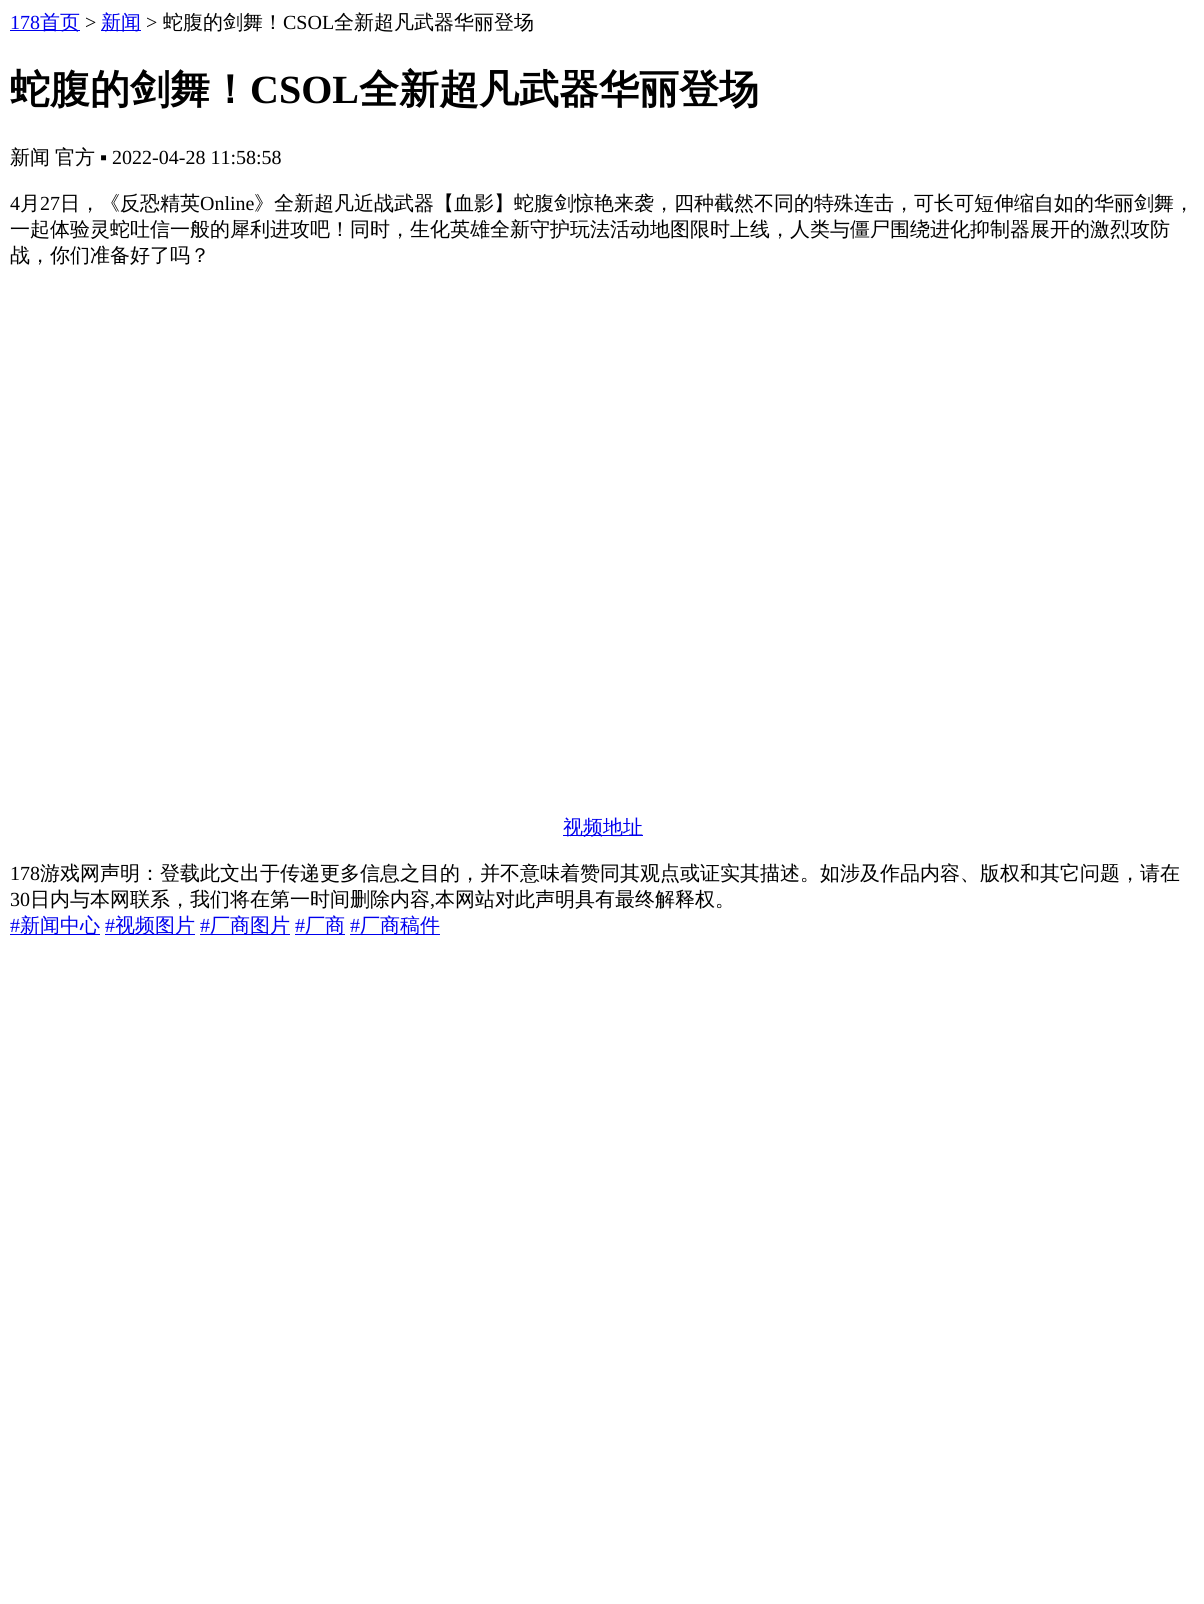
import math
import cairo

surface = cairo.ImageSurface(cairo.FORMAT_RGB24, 1204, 1604)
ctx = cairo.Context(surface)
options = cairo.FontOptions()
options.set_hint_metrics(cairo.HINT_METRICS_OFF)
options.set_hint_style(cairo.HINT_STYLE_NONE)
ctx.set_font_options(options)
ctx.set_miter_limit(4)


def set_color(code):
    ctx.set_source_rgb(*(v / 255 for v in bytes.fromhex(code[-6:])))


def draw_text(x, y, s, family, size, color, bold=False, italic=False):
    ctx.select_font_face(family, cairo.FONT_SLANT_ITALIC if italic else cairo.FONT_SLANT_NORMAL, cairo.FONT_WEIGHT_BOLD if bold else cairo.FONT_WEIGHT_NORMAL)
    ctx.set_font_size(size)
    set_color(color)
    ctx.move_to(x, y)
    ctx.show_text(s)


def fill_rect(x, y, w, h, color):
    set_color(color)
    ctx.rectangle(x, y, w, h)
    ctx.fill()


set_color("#ffffff")
ctx.paint()
draw_text(10, 29, "178", "Liberation Serif", 20, "#0000ee")
fill_rect(10, 30, 70, 1, "#0000ee")
draw_text(40, 29, "首页", "WenQuanYi Zen Hei Medium", 20, "#0000ee")
draw_text(85, 29, ">", "Liberation Serif", 20, "#000000")
fill_rect(101, 30, 40, 1, "#0000ee")
draw_text(101, 29, "新闻", "WenQuanYi Zen Hei Medium", 20, "#0000ee")
draw_text(146, 29, ">", "Liberation Serif", 20, "#000000")
draw_text(163, 29, "蛇腹的剑舞！", "WenQuanYi Zen Hei Medium", 20, "#000000")
draw_text(283, 29, "CSOL", "Liberation Serif", 20, "#000000")
draw_text(334, 29, "全新超凡武器华丽登场", "WenQuanYi Zen Hei Medium", 20, "#000000")
draw_text(10, 103, "蛇腹的剑舞！", "WenQuanYi Zen Hei", 40, "#000000", bold=True)
draw_text(250, 103, "CSOL", "Liberation Serif", 40, "#000000", bold=True)
draw_text(359, 103, "全新超凡武器华丽登场", "WenQuanYi Zen Hei", 40, "#000000", bold=True)
draw_text(10, 164, "新闻", "WenQuanYi Zen Hei Medium", 20, "#000000")
draw_text(55, 164, "官方", "WenQuanYi Zen Hei Medium", 20, "#000000")
draw_text(100, 164, "▪ 2022-04-28 11:58:58", "Liberation Serif", 20, "#000000")
draw_text(10, 210, "4", "Liberation Serif", 20, "#000000")
draw_text(20, 210, "月", "WenQuanYi Zen Hei Medium", 20, "#000000")
draw_text(40, 210, "27", "Liberation Serif", 20, "#000000")
draw_text(60, 210, "日，《反恐精英", "WenQuanYi Zen Hei Medium", 20, "#000000")
draw_text(200, 210, "Online", "Liberation Serif", 20, "#000000")
draw_text(254, 210, "》全新超凡近战武器【血影】蛇腹剑惊艳来袭，四种截然不同的特殊连击，可长可短伸缩自如的华丽剑舞，", "WenQuanYi Zen Hei Medium", 20, "#000000")
draw_text(10, 236, "一起体验灵蛇吐信一般的犀利进攻吧！同时，生化英雄全新守护玩法活动地图限时上线，人类与僵尸围绕进化抑制器展开的激烈攻防", "WenQuanYi Zen Hei Medium", 20, "#000000")
draw_text(10, 262, "战，你们准备好了吗？", "WenQuanYi Zen Hei Medium", 20, "#000000")
fill_rect(563, 835, 80, 1, "#0000ee")
draw_text(563, 834, "视频地址", "WenQuanYi Zen Hei Medium", 20, "#0000ee")
draw_text(10, 880, "178", "Liberation Serif", 20, "#000000")
draw_text(40, 880, "游戏网声明：登载此文出于传递更多信息之目的，并不意味着赞同其观点或证实其描述。如涉及作品内容、版权和其它问题，请在", "WenQuanYi Zen Hei Medium", 20, "#000000")
draw_text(10, 906, "30", "Liberation Serif", 20, "#000000")
draw_text(30, 906, "日内与本网联系，我们将在第一时间删除内容", "WenQuanYi Zen Hei Medium", 20, "#000000")
draw_text(430, 906, ",", "Liberation Serif", 20, "#000000")
draw_text(435, 906, "本网站对此声明具有最终解释权。", "WenQuanYi Zen Hei Medium", 20, "#000000")
draw_text(10, 932, "#", "Liberation Serif", 20, "#0000ee")
fill_rect(10, 934, 90, 1, "#0000ee")
draw_text(20, 932, "新闻中心", "WenQuanYi Zen Hei Medium", 20, "#0000ee")
draw_text(105, 932, "#", "Liberation Serif", 20, "#0000ee")
fill_rect(105, 934, 90, 1, "#0000ee")
draw_text(115, 932, "视频图片", "WenQuanYi Zen Hei Medium", 20, "#0000ee")
draw_text(200, 932, "#", "Liberation Serif", 20, "#0000ee")
fill_rect(200, 934, 90, 1, "#0000ee")
draw_text(210, 932, "厂商图片", "WenQuanYi Zen Hei Medium", 20, "#0000ee")
draw_text(295, 932, "#", "Liberation Serif", 20, "#0000ee")
fill_rect(295, 934, 50, 1, "#0000ee")
draw_text(305, 932, "厂商", "WenQuanYi Zen Hei Medium", 20, "#0000ee")
draw_text(350, 932, "#", "Liberation Serif", 20, "#0000ee")
fill_rect(350, 934, 90, 1, "#0000ee")
draw_text(360, 932, "厂商稿件", "WenQuanYi Zen Hei Medium", 20, "#0000ee")
surface.write_to_png("output.png")
